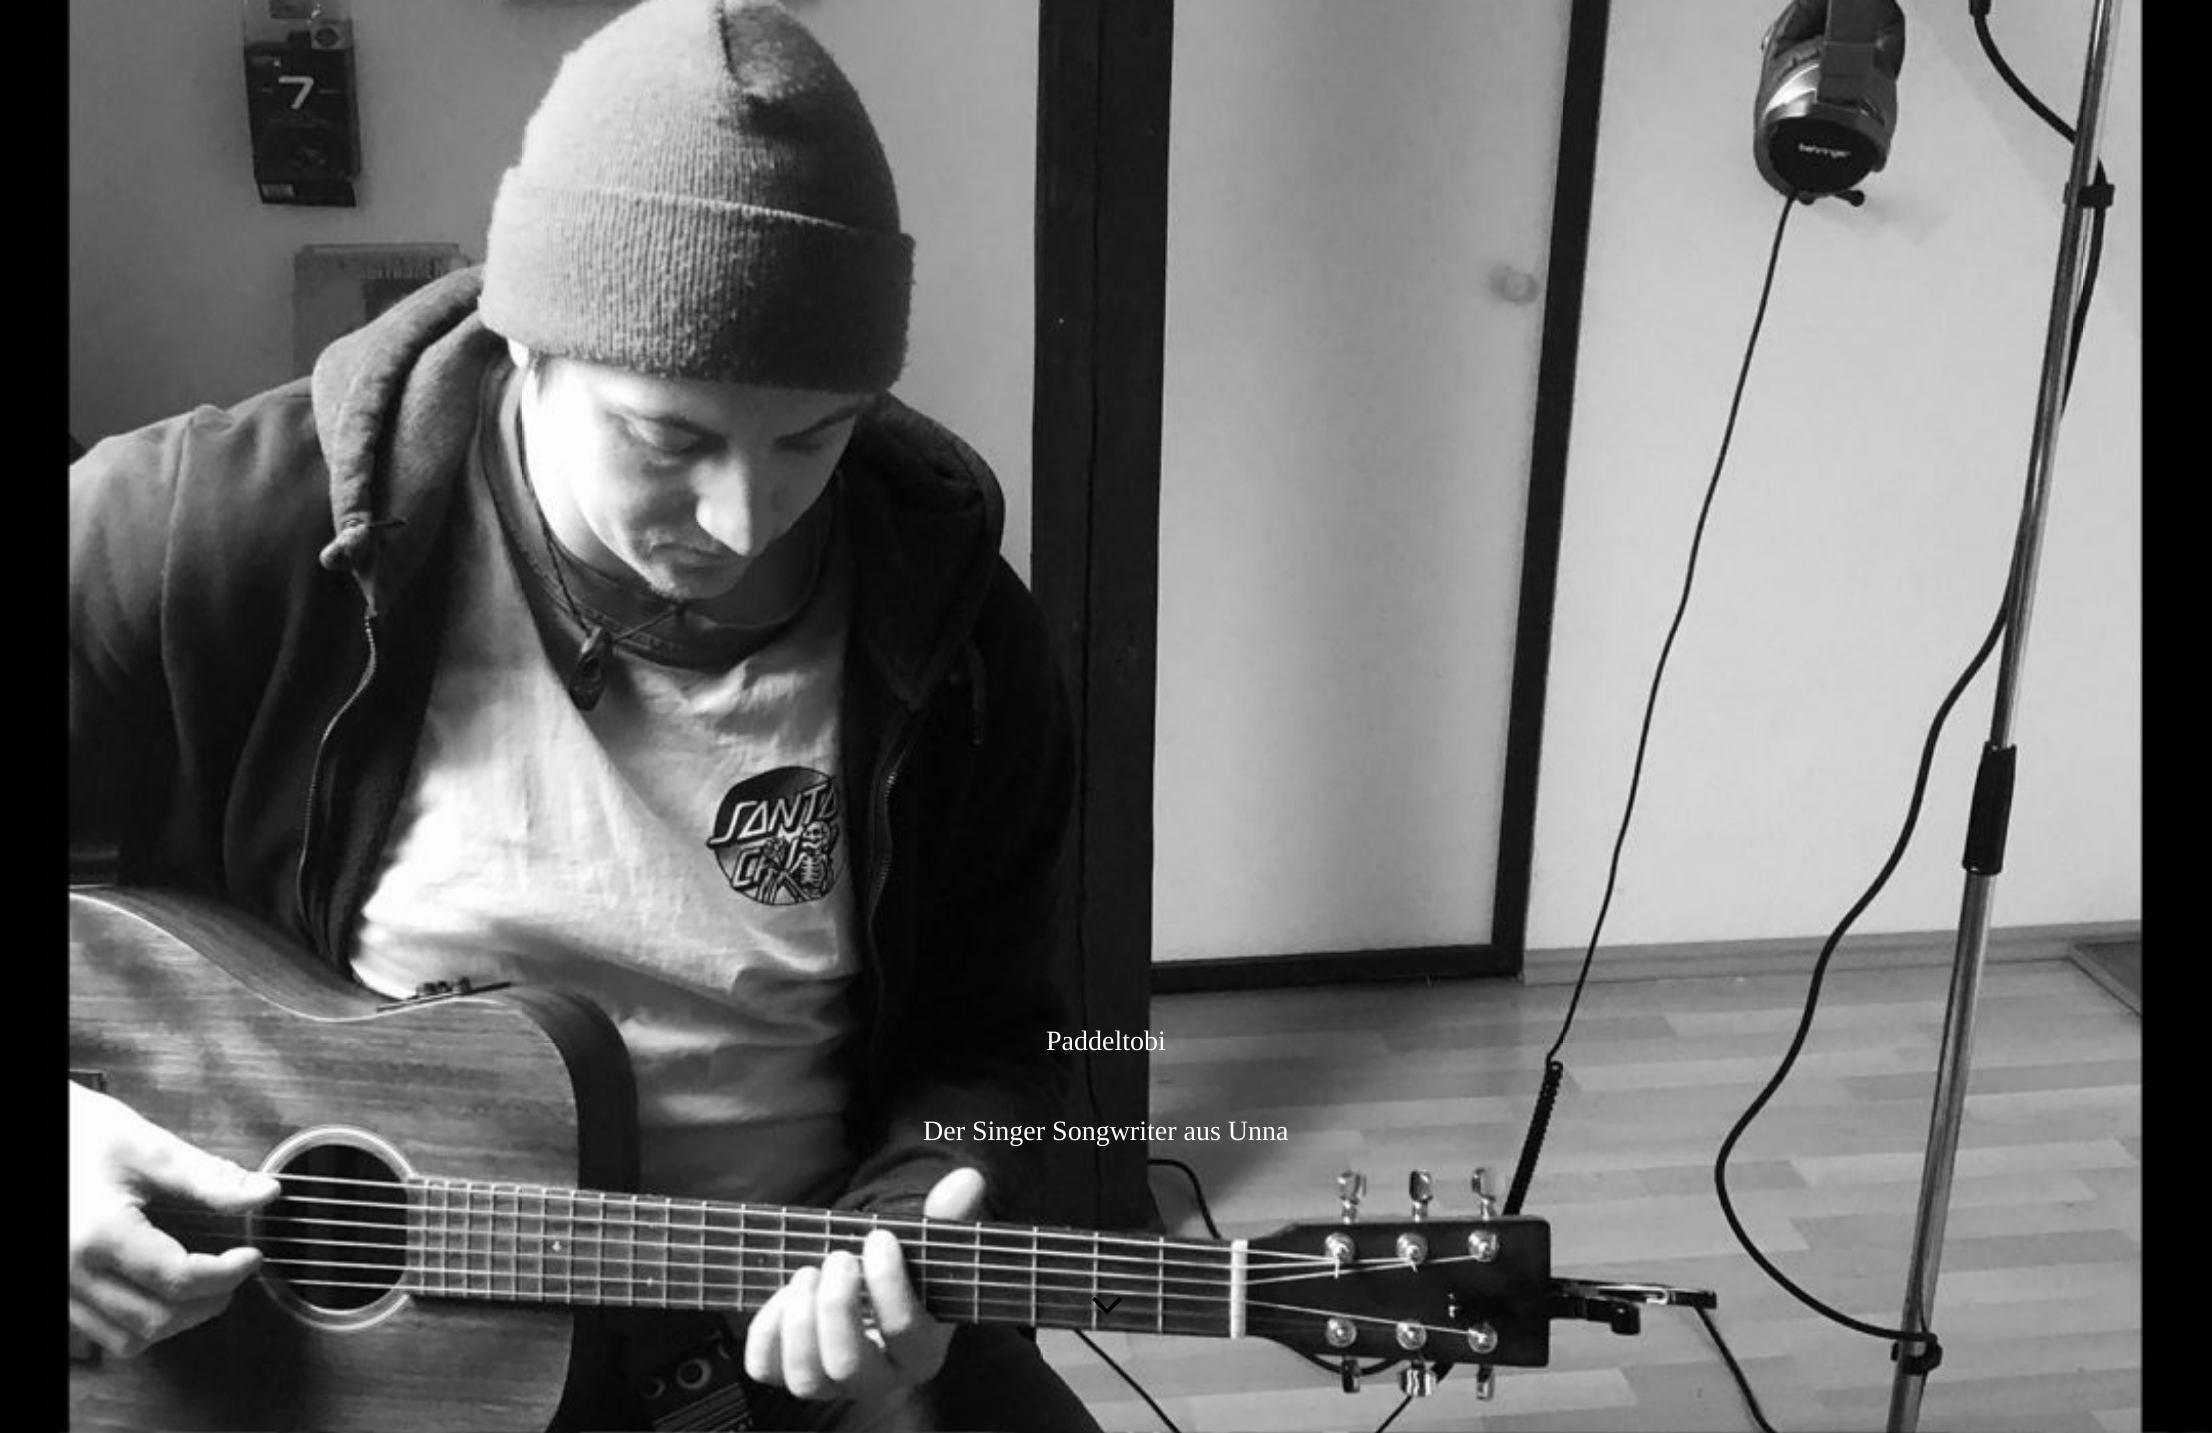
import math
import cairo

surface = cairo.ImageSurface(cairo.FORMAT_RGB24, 2212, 1433)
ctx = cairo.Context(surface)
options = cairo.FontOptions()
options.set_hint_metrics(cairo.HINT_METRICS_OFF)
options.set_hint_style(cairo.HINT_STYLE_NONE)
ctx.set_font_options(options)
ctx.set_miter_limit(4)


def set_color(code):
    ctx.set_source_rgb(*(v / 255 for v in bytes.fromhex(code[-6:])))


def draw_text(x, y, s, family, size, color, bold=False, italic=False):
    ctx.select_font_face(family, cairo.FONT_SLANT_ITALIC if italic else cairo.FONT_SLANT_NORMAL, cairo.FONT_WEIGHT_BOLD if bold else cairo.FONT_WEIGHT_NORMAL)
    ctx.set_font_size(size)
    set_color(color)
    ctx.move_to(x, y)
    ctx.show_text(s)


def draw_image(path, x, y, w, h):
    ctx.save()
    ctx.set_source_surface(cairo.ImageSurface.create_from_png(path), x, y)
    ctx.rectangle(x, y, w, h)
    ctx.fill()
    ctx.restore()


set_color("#ffffff")
ctx.paint()
draw_image("assets/img1.png", 0, 0, 2212, 1433)
draw_image("assets/img2.png", 56, 0, 2156, 1433)
draw_text(1046, 1050, "Paddeltobi", "Liberation Serif", 28, "#ffffff")
draw_text(923, 1140, "Der Singer Songwriter aus Unna", "Liberation Serif", 28, "#ffffff")
draw_image("assets/img3.png", 1092, 1297, 30, 17)
surface.write_to_png("output.png")
